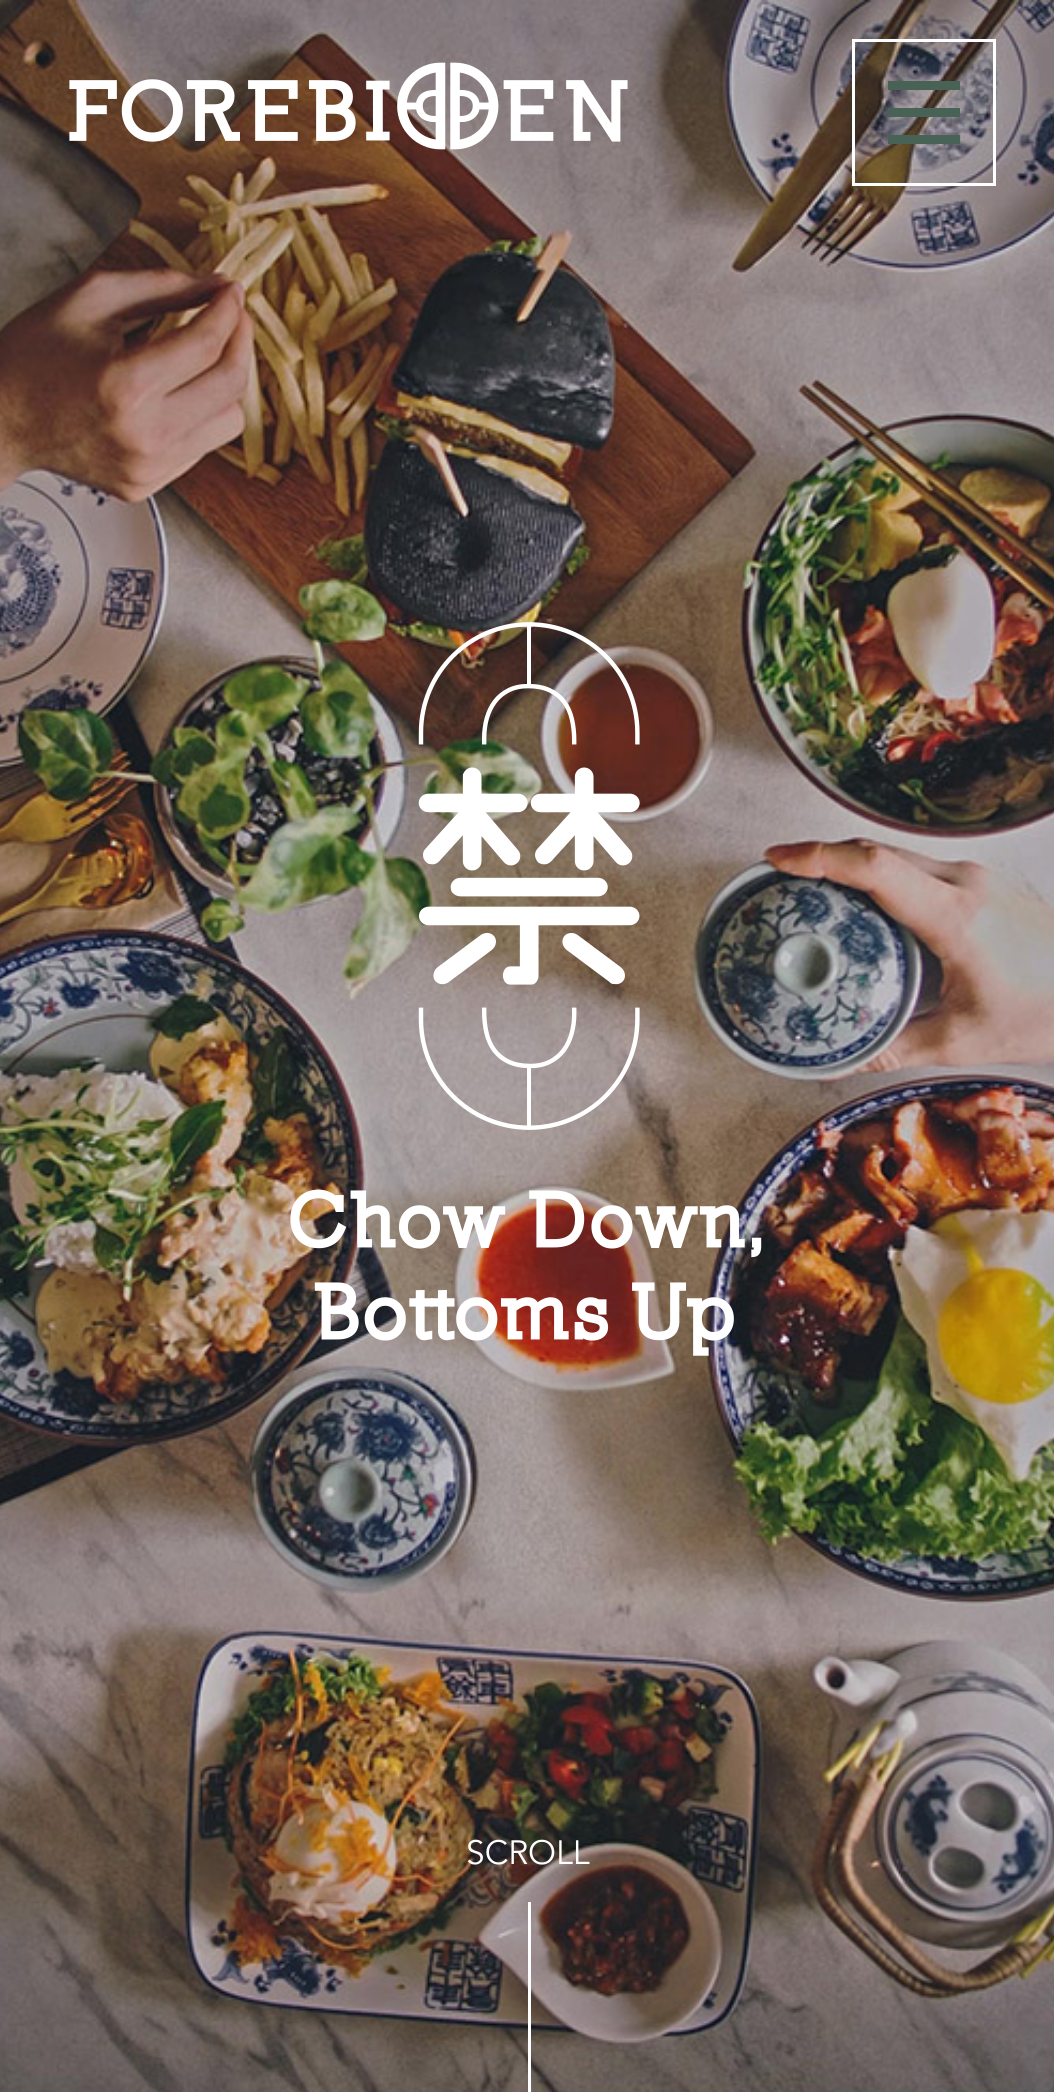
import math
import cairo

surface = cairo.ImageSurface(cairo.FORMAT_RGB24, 1054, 2092)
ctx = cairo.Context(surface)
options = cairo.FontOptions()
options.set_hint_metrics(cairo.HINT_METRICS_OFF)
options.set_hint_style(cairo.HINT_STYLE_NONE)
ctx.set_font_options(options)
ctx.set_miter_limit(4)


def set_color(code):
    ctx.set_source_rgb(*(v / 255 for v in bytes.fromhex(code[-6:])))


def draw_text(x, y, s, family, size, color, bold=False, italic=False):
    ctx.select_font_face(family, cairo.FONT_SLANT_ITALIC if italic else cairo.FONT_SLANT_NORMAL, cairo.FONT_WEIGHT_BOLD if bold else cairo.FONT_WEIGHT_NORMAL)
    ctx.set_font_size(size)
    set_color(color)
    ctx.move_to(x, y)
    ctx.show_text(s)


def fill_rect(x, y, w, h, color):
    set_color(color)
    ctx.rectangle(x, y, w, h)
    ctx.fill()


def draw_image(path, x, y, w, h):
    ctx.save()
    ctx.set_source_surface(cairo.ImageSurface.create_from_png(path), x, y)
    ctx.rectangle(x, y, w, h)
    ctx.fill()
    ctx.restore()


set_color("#ffffff")
ctx.paint()
draw_image("assets/img1.png", 0, 0, 1054, 2092)
ctx.rectangle(853.5, 40.5, 141, 144)
set_color("#ffffff")
ctx.set_line_width(3)
ctx.stroke()
fill_rect(888, 81, 72, 9, "#486355")
fill_rect(888, 108, 72, 9, "#486355")
fill_rect(888, 135, 72, 9, "#486355")
draw_image("assets/img2.png", 69, 62, 559, 88)
draw_image("assets/img3.png", 418, 622, 222, 508)
draw_text(288, 1245, "Chow Down,", "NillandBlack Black", 76.75, "#ffffff")
draw_text(316, 1337, "Bottoms Up", "NillandBlack Black", 76.75, "#ffffff")
draw_text(466, 1864, "SCROLL", "Avenir", 33.5, "#ffffff")
fill_rect(528, 1902, 3, 190, "#ffffff")
surface.write_to_png("output.png")
